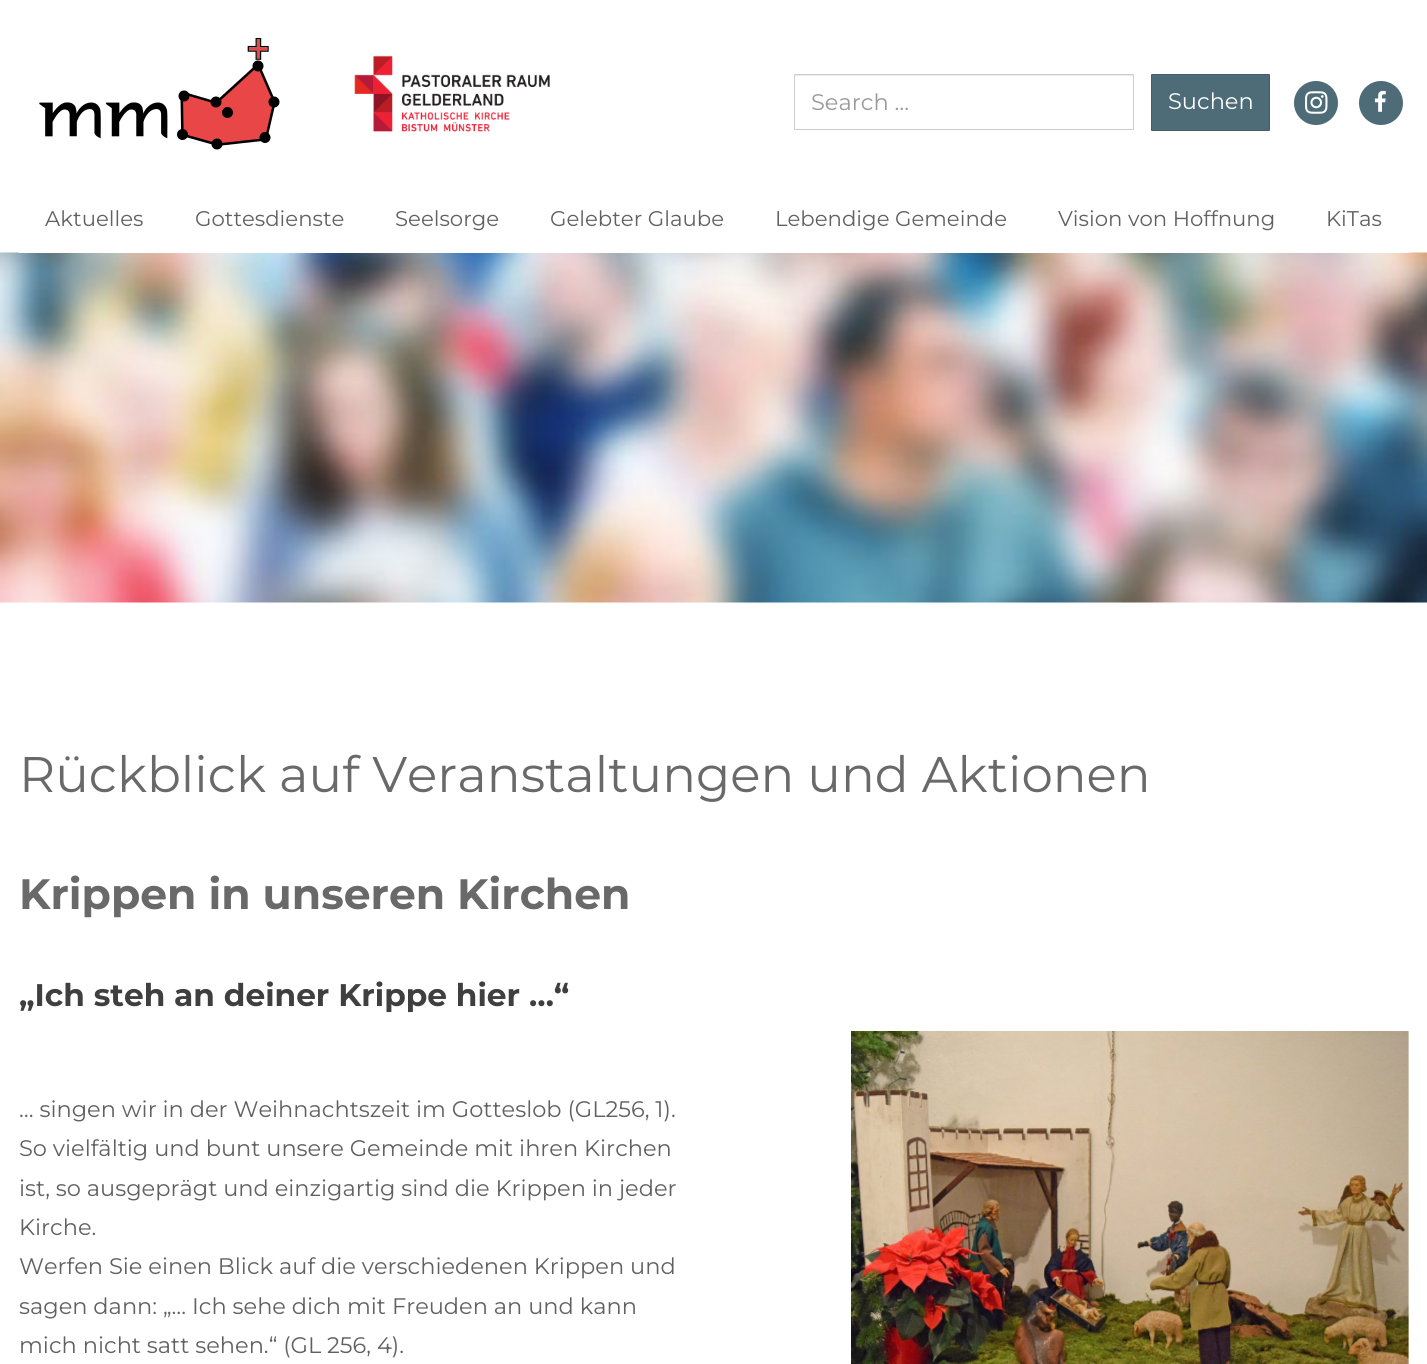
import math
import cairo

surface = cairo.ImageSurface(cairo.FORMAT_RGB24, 1427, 1364)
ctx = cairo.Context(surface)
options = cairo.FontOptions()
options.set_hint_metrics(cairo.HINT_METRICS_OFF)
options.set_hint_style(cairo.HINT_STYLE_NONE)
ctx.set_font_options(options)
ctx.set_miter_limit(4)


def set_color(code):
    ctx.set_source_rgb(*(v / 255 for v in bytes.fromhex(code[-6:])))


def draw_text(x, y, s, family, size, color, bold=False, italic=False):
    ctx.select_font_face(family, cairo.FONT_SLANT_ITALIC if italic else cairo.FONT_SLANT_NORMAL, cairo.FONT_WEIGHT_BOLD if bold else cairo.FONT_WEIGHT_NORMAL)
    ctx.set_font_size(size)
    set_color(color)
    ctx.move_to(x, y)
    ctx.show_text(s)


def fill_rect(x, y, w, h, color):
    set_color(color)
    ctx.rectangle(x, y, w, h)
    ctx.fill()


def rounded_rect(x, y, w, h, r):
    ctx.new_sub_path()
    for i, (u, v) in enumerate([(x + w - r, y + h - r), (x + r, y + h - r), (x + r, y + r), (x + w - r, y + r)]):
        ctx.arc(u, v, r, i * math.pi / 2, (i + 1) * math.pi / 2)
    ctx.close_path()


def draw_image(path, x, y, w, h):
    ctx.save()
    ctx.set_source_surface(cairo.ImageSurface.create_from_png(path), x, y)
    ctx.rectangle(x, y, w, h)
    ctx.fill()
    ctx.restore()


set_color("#ffffff")
ctx.paint()
draw_image("assets/img1.png", 39, 38, 241, 112)
draw_image("assets/img2.png", 354, 55, 196, 77)
fill_rect(795, 75, 338, 1, "#ececec")
rounded_rect(794.5, 74.5, 339, 55, 0.5)
set_color("#cccccc")
ctx.set_line_width(1)
ctx.stroke()
draw_text(811, 110, "Search …", "Montserrat Thin", 22.5, "#999999")
set_color("#4d6c78")
rounded_rect(1151.5, 74.5, 118, 56, 0.5)
ctx.fill_preserve()
set_color("#435e68")
ctx.stroke()
draw_text(1168, 109, "Suchen", "Montserrat Thin", 22.5, "#ffffff")
set_color("#4d6c78")
ctx.new_path()
ctx.arc(1316, 103, 22, 0, 2 * math.pi)
ctx.fill()
draw_image("assets/img3.png", 1305, 91, 23, 23)
ctx.arc(1381, 103, 22, 0, 2 * math.pi)
ctx.fill()
draw_image("assets/img4.png", 1374, 90, 12, 22)
draw_image("assets/img5.png", 0, 252, 1427, 351)
fill_rect(19, 252, 1390, 1, "#ffffff")
draw_text(45, 226, "Aktuelles", "Montserrat Thin", 21.25, "#616161")
draw_text(195, 226, "Gottesdienste", "Montserrat Thin", 21.25, "#616161")
draw_text(395, 226, "Seelsorge", "Montserrat Thin", 21.25, "#616161")
draw_text(550, 226, "Gelebter Glaube", "Montserrat Thin", 21.25, "#616161")
draw_text(775, 226, "Lebendige Gemeinde", "Montserrat Thin", 21.25, "#616161")
draw_text(1058, 226, "Vision von Hoffnung", "Montserrat Thin", 21.25, "#616161")
draw_text(1326, 226, "KiTas", "Montserrat Thin", 21.25, "#616161")
draw_text(19, 792, "Rückblick auf Veranstaltungen und Aktionen", "Montserrat Thin", 50, "#696969")
draw_text(19, 909, "Krippen in unseren Kirchen", "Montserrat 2 Thin", 42.5, "#696969")
draw_text(19, 1006, "„Ich steh an deiner Krippe hier …“", "Montserrat 2 Thin", 31.25, "#3f3f3f")
draw_text(19, 1117, "… singen wir in der Weihnachtszeit im Gotteslob (GL256, 1).", "Montserrat Thin", 22.5, "#616161")
draw_text(19, 1156, "So vielfältig und bunt unsere Gemeinde mit ihren Kirchen", "Montserrat Thin", 22.5, "#616161")
draw_text(19, 1196, "ist, so ausgeprägt und einzigartig sind die Krippen in jeder", "Montserrat Thin", 22.5, "#616161")
draw_text(19, 1235, "Kirche.", "Montserrat Thin", 22.5, "#616161")
draw_text(19, 1274, "Werfen Sie einen Blick auf die verschiedenen Krippen und", "Montserrat Thin", 22.5, "#616161")
draw_text(19, 1314, "sagen dann: „… Ich sehe dich mit Freuden an und kann", "Montserrat Thin", 22.5, "#616161")
draw_text(19, 1353, "mich nicht satt sehen.“ (GL 256, 4).", "Montserrat Thin", 22.5, "#616161")
draw_image("assets/img6.png", 851, 1031, 558, 333)
surface.write_to_png("output.png")
